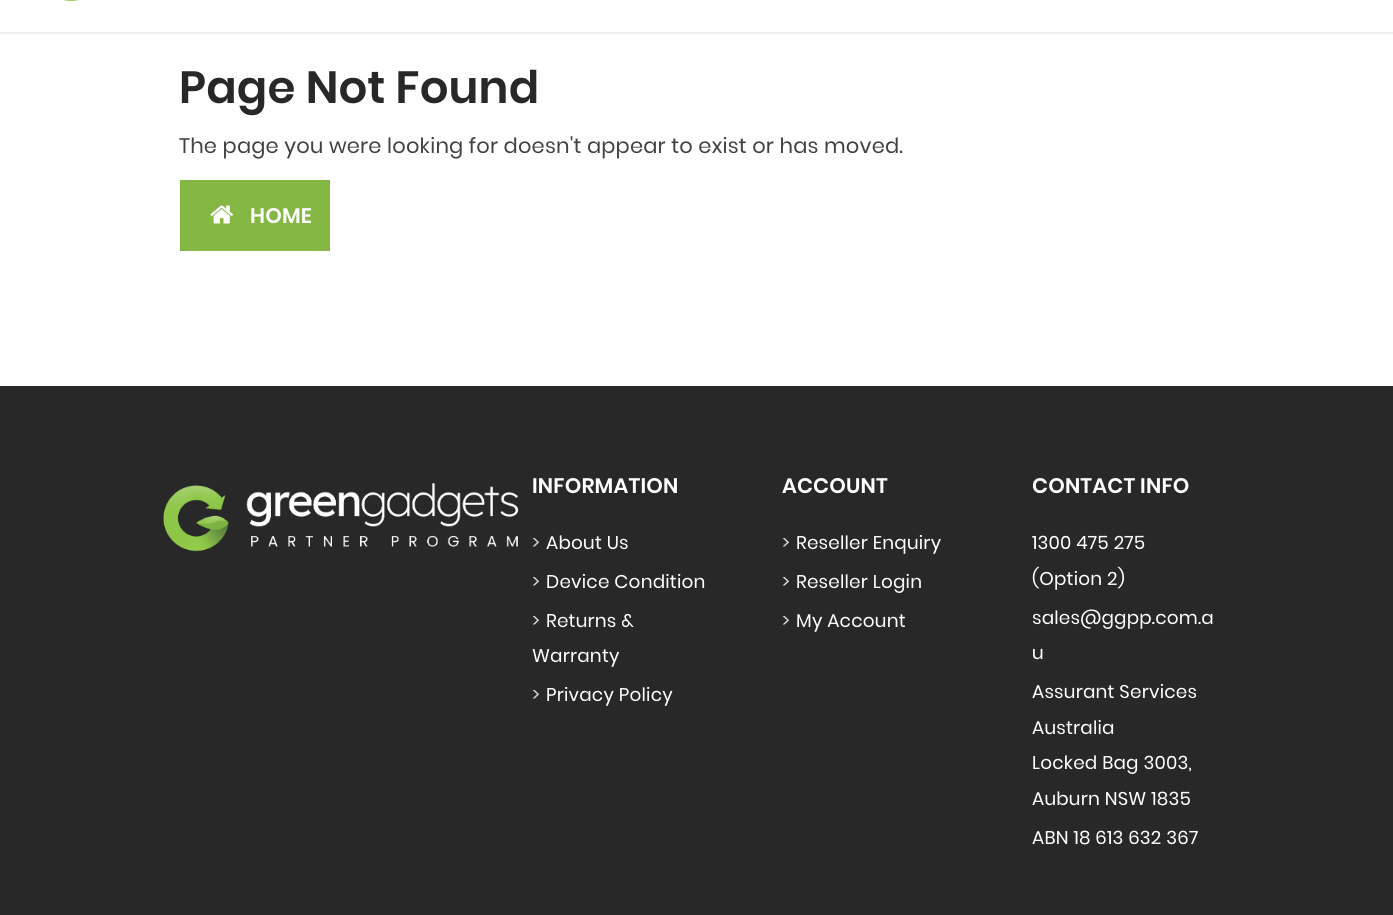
import math
import cairo

surface = cairo.ImageSurface(cairo.FORMAT_RGB24, 1393, 915)
ctx = cairo.Context(surface)
options = cairo.FontOptions()
options.set_hint_metrics(cairo.HINT_METRICS_OFF)
options.set_hint_style(cairo.HINT_STYLE_NONE)
ctx.set_font_options(options)
ctx.set_miter_limit(4)


def set_color(code):
    ctx.set_source_rgb(*(v / 255 for v in bytes.fromhex(code[-6:])))


def draw_spaced(x, y, s, letter, word):
    ctx.move_to(x, y)
    for ch in s:
        ctx.show_text(ch)
        ctx.rel_move_to(letter + word * (ch == ' '), 0)


def fill_rect(x, y, w, h, color):
    set_color(color)
    ctx.rectangle(x, y, w, h)
    ctx.fill()


def draw_image(path, x, y, w, h):
    ctx.save()
    ctx.set_source_surface(cairo.ImageSurface.create_from_png(path), x, y)
    ctx.rectangle(x, y, w, h)
    ctx.fill()
    ctx.restore()


set_color("#ffffff")
ctx.paint()
fill_rect(0, 32, 1393, 2, "#eeeeee")
draw_image("assets/img1.png", 63, 0, 16, 1)
ctx.select_font_face("Poppins SemiBold")
ctx.set_font_size(45)
set_color("#282828")
draw_spaced(179, 103, "Page Not Found", 0.2, 0)
ctx.select_font_face("Poppins")
ctx.set_font_size(21)
set_color("#414141")
draw_spaced(179, 153, "The page you were looking for doesn't appear to exist or has moved.", 0.2, 0)
fill_rect(180, 180, 150, 71, "#85b744")
draw_image("assets/img2.png", 210, 205, 23, 19)
ctx.select_font_face("Poppins SemiBold")
set_color("#ffffff")
draw_spaced(250, 223, "HOME", 0.2, 0)
fill_rect(0, 386, 1393, 529, "#282828")
draw_image("assets/img3.png", 163, 483, 356, 69)
set_color("#ffffff")
draw_spaced(532, 493, "INFORMATION", 0.2, 0)
ctx.select_font_face("Poppins")
ctx.set_font_size(18.4)
set_color("#dbdbdb")
draw_spaced(532, 549, ">", 0.2, 0)
set_color("#ffffff")
draw_spaced(546, 549, "About Us", 0.2, 0)
set_color("#dbdbdb")
draw_spaced(532, 588, ">", 0.2, 0)
set_color("#ffffff")
draw_spaced(546, 588, "Device Condition", 0.2, 0)
set_color("#dbdbdb")
draw_spaced(532, 627, ">", 0.2, 0)
set_color("#ffffff")
draw_spaced(546, 627, "Returns &", 0.2, 0)
draw_spaced(532, 662, "Warranty", 0.2, 0)
set_color("#dbdbdb")
draw_spaced(532, 701, ">", 0.2, 0)
set_color("#ffffff")
draw_spaced(546, 701, "Privacy Policy", 0.2, 0)
ctx.select_font_face("Poppins SemiBold")
ctx.set_font_size(21)
draw_spaced(782, 493, "ACCOUNT", 0.2, 0)
ctx.select_font_face("Poppins")
ctx.set_font_size(18.4)
set_color("#dbdbdb")
draw_spaced(782, 549, ">", 0.2, 0)
set_color("#ffffff")
draw_spaced(796, 549, "Reseller Enquiry", 0.2, 0)
set_color("#dbdbdb")
draw_spaced(782, 588, ">", 0.2, 0)
set_color("#ffffff")
draw_spaced(796, 588, "Reseller Login", 0.2, 0)
set_color("#dbdbdb")
draw_spaced(782, 627, ">", 0.2, 0)
set_color("#ffffff")
draw_spaced(796, 627, "My Account", 0.2, 0)
ctx.select_font_face("Poppins SemiBold")
ctx.set_font_size(21)
draw_spaced(1032, 493, "CONTACT INFO", 0.2, 0)
ctx.select_font_face("Poppins")
ctx.set_font_size(18.4)
draw_spaced(1032, 549, "1300 475 275", 0.2, 0)
draw_spaced(1032, 585, "(Option 2)", 0.2, 0)
draw_spaced(1032, 624, "sales@ggpp.com.a", 0.2, 0)
draw_spaced(1032, 659, "u", 0.2, 0)
draw_spaced(1032, 698, "Assurant Services", 0.2, 0)
draw_spaced(1032, 734, "Australia", 0.2, 0)
draw_spaced(1032, 769, "Locked Bag 3003,", 0.2, 0)
draw_spaced(1032, 805, "Auburn NSW 1835", 0.2, 0)
draw_spaced(1032, 844, "ABN 18 613 632 367", 0.2, 0)
surface.write_to_png("output.png")
